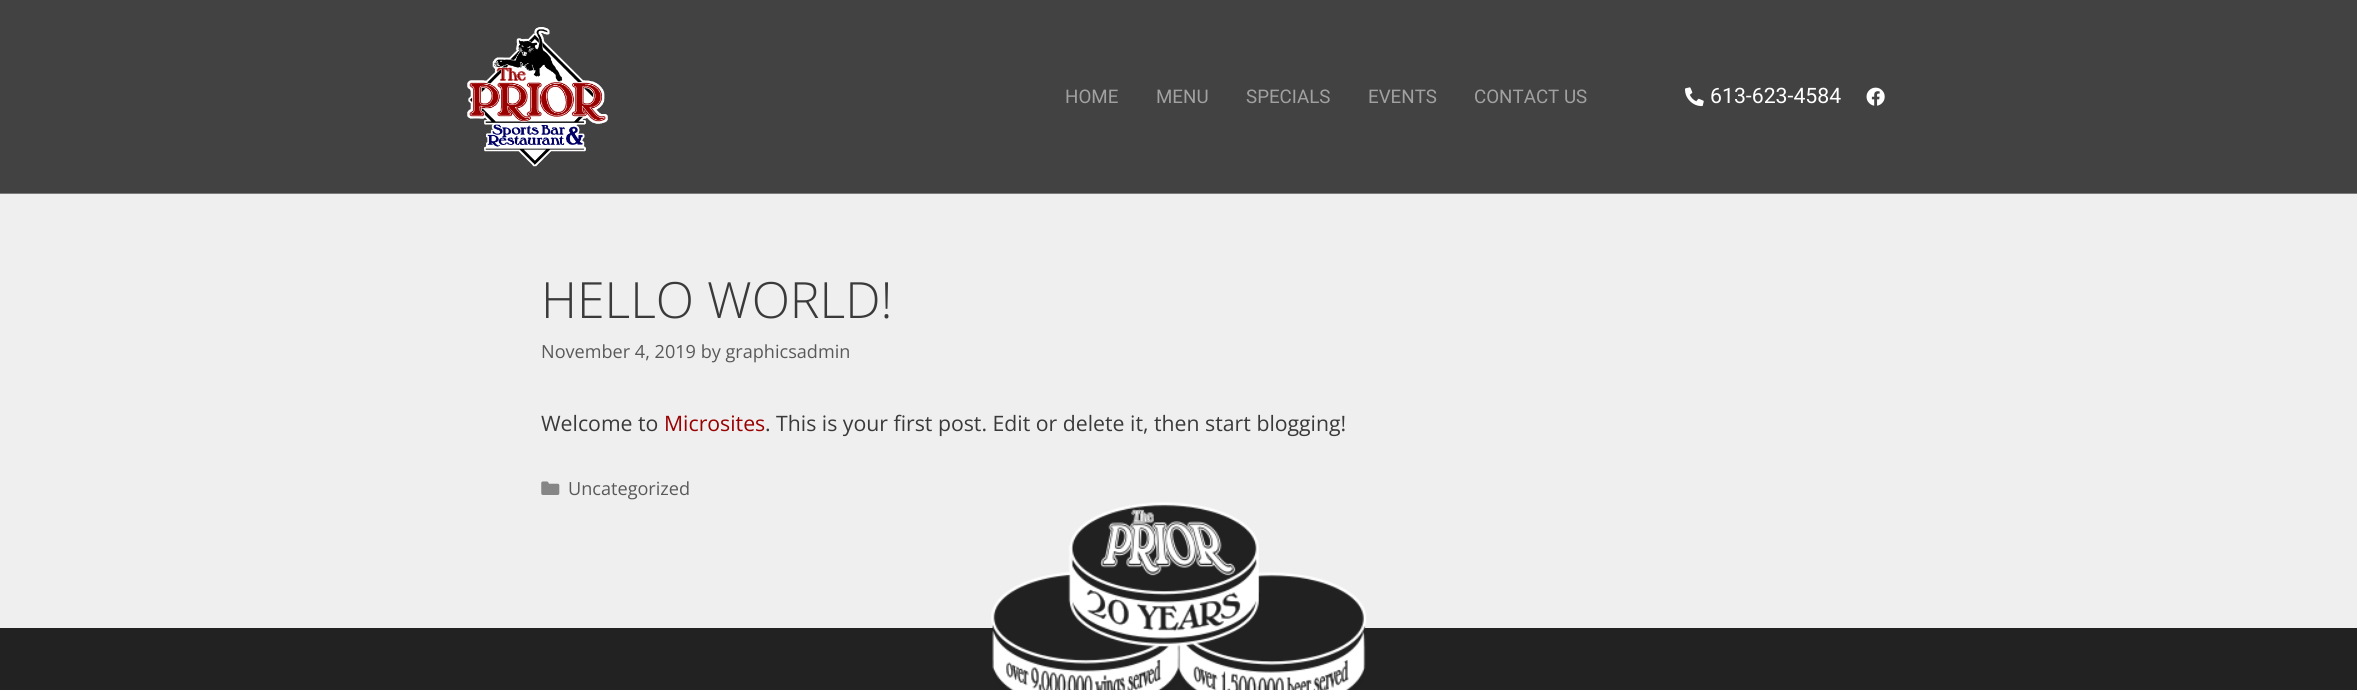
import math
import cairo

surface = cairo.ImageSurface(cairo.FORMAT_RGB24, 2357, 690)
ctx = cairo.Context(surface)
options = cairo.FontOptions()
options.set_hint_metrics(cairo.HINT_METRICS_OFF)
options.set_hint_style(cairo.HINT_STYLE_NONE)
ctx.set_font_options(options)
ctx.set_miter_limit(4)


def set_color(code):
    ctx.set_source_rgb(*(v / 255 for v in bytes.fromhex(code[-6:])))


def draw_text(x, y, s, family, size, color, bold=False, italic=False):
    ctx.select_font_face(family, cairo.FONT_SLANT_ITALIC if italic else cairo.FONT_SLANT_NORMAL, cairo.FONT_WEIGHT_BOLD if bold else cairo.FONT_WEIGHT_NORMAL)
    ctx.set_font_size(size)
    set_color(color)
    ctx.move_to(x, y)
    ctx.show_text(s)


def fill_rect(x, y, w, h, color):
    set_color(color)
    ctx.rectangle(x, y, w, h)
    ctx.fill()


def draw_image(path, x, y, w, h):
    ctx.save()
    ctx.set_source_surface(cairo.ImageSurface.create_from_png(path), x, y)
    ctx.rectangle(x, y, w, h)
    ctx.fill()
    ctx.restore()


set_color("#efefef")
ctx.paint()
fill_rect(0, 0, 2357, 193, "#424242")
fill_rect(0, 193, 2357, 1, "#7a7a7a")
draw_image("assets/img1.png", 467, 27, 141, 140)
draw_text(1065, 103, "HOME", "Roboto", 18.75, "#a1a1a1")
draw_text(1156, 103, "MENU", "Roboto", 18.75, "#a1a1a1")
draw_text(1246, 103, "SPECIALS", "Roboto", 18.75, "#a1a1a1")
draw_text(1368, 103, "EVENTS", "Roboto", 18.75, "#a1a1a1")
draw_text(1474, 103, "CONTACT US", "Roboto", 18.75, "#a1a1a1")
draw_image("assets/img2.png", 1685, 87, 19, 20)
draw_text(1710, 103, "613-623-4584", "Roboto", 21.25, "#ffffff")
draw_image("assets/img3.png", 1866, 87, 19, 19)
draw_text(541, 318, "HELLO WORLD!", "Open Sans Light", 50, "#3a3a3a")
draw_text(541, 358, "November 4, 2019 by graphicsadmin", "Open Sans", 18.1, "#595959")
draw_text(541, 431, "Welcome to", "Open Sans", 21.25, "#3a3a3a")
draw_text(664, 431, "Microsites", "Open Sans", 21.25, "#990000")
draw_text(765, 431, ". This is your first post. Edit or delete it, then start blogging!", "Open Sans", 21.25, "#3a3a3a")
draw_image("assets/img4.png", 541, 481, 19, 14)
draw_text(568, 495, "Uncategorized", "Open Sans", 18.1, "#595959")
fill_rect(0, 628, 2357, 62, "#222222")
draw_image("assets/img5.png", 991, 502, 376, 188)
surface.write_to_png("output.png")
